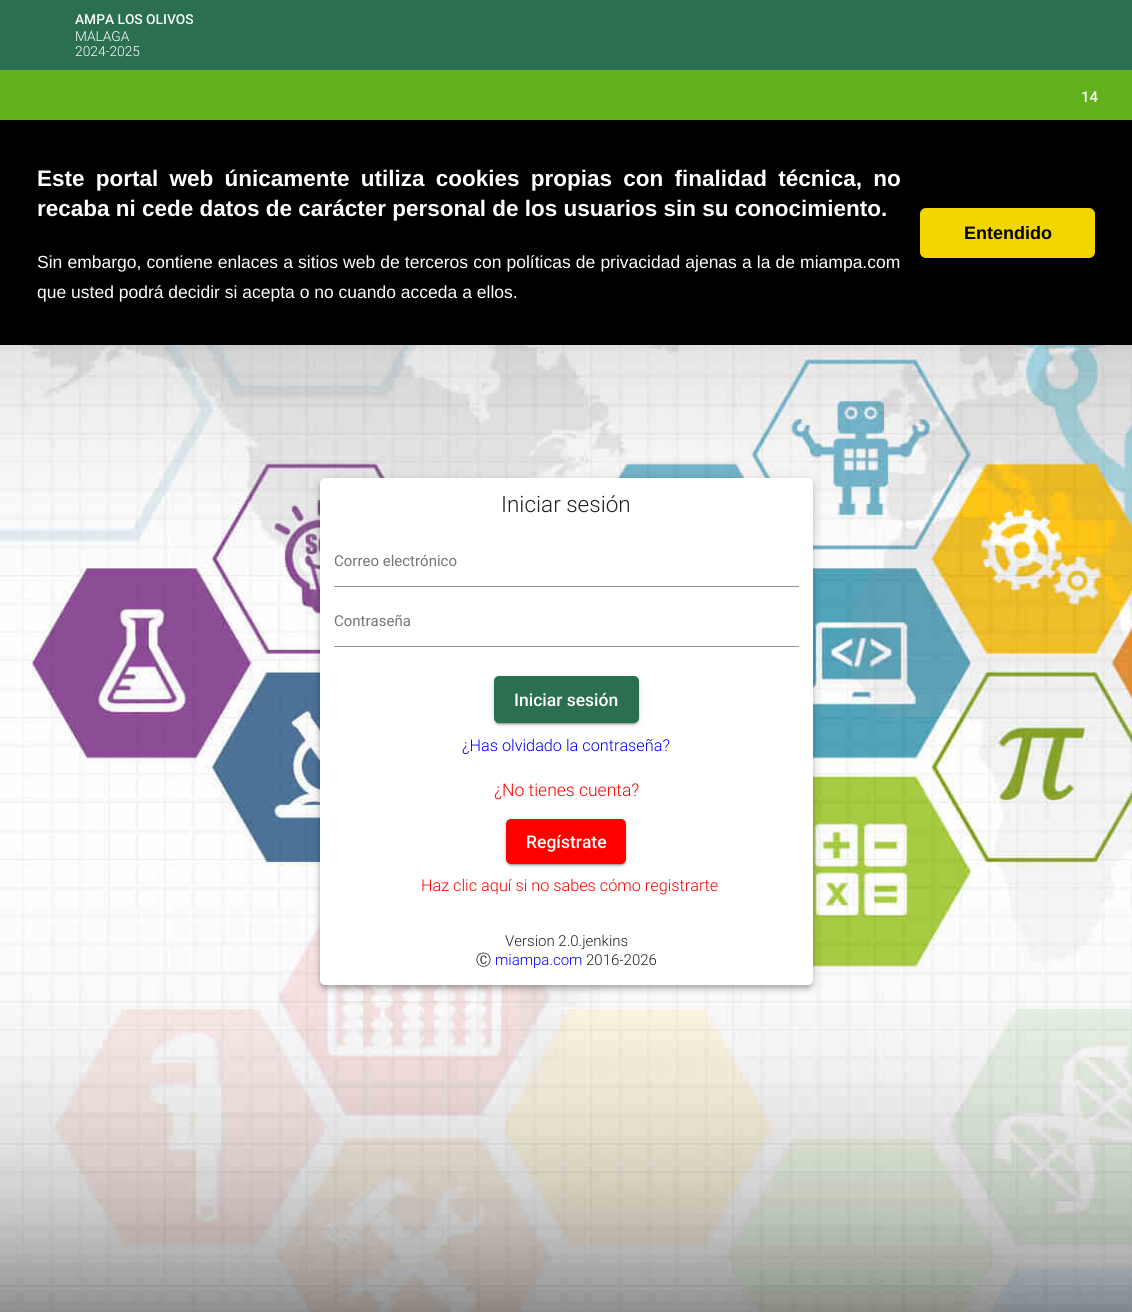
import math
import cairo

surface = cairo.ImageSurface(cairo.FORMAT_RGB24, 1132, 1312)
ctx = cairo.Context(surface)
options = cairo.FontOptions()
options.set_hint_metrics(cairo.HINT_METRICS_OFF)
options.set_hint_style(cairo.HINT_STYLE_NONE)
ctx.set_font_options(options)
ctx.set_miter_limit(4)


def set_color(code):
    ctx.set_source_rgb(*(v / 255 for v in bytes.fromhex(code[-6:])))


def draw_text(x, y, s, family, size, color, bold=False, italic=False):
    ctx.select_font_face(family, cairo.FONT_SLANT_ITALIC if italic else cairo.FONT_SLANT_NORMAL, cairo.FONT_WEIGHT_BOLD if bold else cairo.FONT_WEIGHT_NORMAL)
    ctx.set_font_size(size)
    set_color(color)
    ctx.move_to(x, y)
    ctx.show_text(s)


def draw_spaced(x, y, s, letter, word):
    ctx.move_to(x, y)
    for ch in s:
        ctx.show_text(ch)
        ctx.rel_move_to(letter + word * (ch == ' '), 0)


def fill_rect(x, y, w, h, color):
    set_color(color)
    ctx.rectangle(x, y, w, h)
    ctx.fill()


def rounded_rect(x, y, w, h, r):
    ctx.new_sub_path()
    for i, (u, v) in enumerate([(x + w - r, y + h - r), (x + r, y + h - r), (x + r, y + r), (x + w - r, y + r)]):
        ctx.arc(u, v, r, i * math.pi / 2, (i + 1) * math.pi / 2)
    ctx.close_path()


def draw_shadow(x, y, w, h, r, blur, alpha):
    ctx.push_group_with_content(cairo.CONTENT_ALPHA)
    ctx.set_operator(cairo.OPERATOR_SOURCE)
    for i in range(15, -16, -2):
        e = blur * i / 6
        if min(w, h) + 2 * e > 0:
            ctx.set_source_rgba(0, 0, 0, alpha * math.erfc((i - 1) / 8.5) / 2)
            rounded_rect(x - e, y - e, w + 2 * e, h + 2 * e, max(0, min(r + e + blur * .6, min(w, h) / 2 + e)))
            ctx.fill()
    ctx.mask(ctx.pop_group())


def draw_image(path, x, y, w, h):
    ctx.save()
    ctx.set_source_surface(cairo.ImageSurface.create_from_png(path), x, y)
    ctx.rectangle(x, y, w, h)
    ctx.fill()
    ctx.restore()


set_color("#ffffff")
ctx.paint()
fill_rect(0, 0, 1132, 70, "#2a6f50")
draw_text(75, 24, "AMPA LOS OLIVOS", "Roboto Medium", 13.75, "#ffffff")
ctx.save()
ctx.rectangle(75, 30, 883, 15)
ctx.clip()
draw_text(75, 41, "MÁLAGA", "Roboto Light", 13.75, "#ffffff")
ctx.restore()
draw_text(75, 56, "2024-2025", "Roboto Light", 13.75, "#ffffff")
fill_rect(0, 70, 1132, 50, "#62b11f")
draw_text(1081, 102, "14", "Roboto Medium", 15, "#ffffff")
draw_image("assets/img1.png", 0, 345, 1132, 967)
set_color("#000000")
draw_shadow(320, 479, 493, 507, 5, 6, 0.12)
draw_shadow(320, 483, 493, 507, 5, 3, 0.14)
draw_shadow(321, 481, 490, 505, 4, 2.5, 0.2)
set_color("#ffffff")
rounded_rect(320, 478, 493, 507, 5)
ctx.fill()
draw_text(501, 512, "Iniciar sesión", "Roboto Light", 22.5, "#212121")
draw_text(334, 566, "Correo electrónico", "Roboto", 15, "#757575")
fill_rect(334, 586, 465, 1, "#949494")
draw_text(334, 626, "Contraseña", "Roboto", 15, "#757575")
fill_rect(334, 646, 465, 1, "#949494")
set_color("#000000")
draw_shadow(494, 678, 145, 46, 5, 3, 0.12)
draw_shadow(494, 679, 145, 46, 5, 1, 0.14)
draw_shadow(496, 683, 140, 41, 2.5, 0.5, 0.2)
set_color("#2a6f50")
rounded_rect(494, 676, 145, 47, 5)
ctx.fill()
draw_text(514, 706, "Iniciar sesión", "Roboto Medium", 17.5, "#ffffff")
draw_text(462, 751, "¿Has olvidado la contraseña?", "Roboto Light", 16.25, "#0000ff")
draw_text(494, 796, "¿No tienes cuenta?", "Roboto Light", 17.5, "#ff0000")
set_color("#000000")
draw_shadow(506, 820, 120, 45, 5, 3, 0.12)
draw_shadow(506, 821, 120, 45, 5, 1, 0.14)
draw_shadow(509, 825, 115, 40, 2.5, 0.5, 0.2)
set_color("#ff0000")
rounded_rect(506, 819, 120, 45, 5)
ctx.fill()
draw_text(526, 848, "Regístrate", "Roboto Medium", 17.5, "#ffffff")
draw_text(421, 891, "Haz clic aquí si no sabes cómo registrarte", "Roboto Light", 16.25, "#ff0000")
draw_text(505, 946, "Version 2.0.jenkins", "Roboto Light", 15, "#212121")
draw_text(476, 965, "Ⓒ", "WenQuanYi Zen Hei Medium", 15, "#212121")
draw_text(495, 965, "miampa.com", "Roboto Light", 15, "#0000ff")
draw_text(586, 965, "2016-2026", "Roboto Light", 15, "#212121")
fill_rect(0, 120, 1132, 225, "#000000")
ctx.select_font_face("Liberation Sans", cairo.FONT_SLANT_NORMAL, cairo.FONT_WEIGHT_BOLD)
ctx.set_font_size(22.5)
set_color("#ffffff")
draw_spaced(37, 186, "Este portal web únicamente utiliza cookies propias con finalidad técnica, no", 0, 5)
draw_text(37, 216, "recaba ni cede datos de carácter personal de los usuarios sin su conocimiento.", "Liberation Sans", 22.5, "#ffffff", bold=True)
ctx.select_font_face("Liberation Sans")
ctx.set_font_size(17.5)
draw_spaced(37, 268, "Sin embargo, contiene enlaces a sitios web de terceros con políticas de privacidad ajenas a la de miampa.com", 0, 0.25)
draw_text(37, 298, "que usted podrá decidir si acepta o no cuando acceda a ellos.", "Liberation Sans", 17.5, "#ffffff")
set_color("#f1d600")
rounded_rect(920, 208, 175, 50, 6)
ctx.fill()
draw_text(964, 239, "Entendido", "Liberation Sans", 18, "#000000", bold=True)
surface.write_to_png("output.png")
